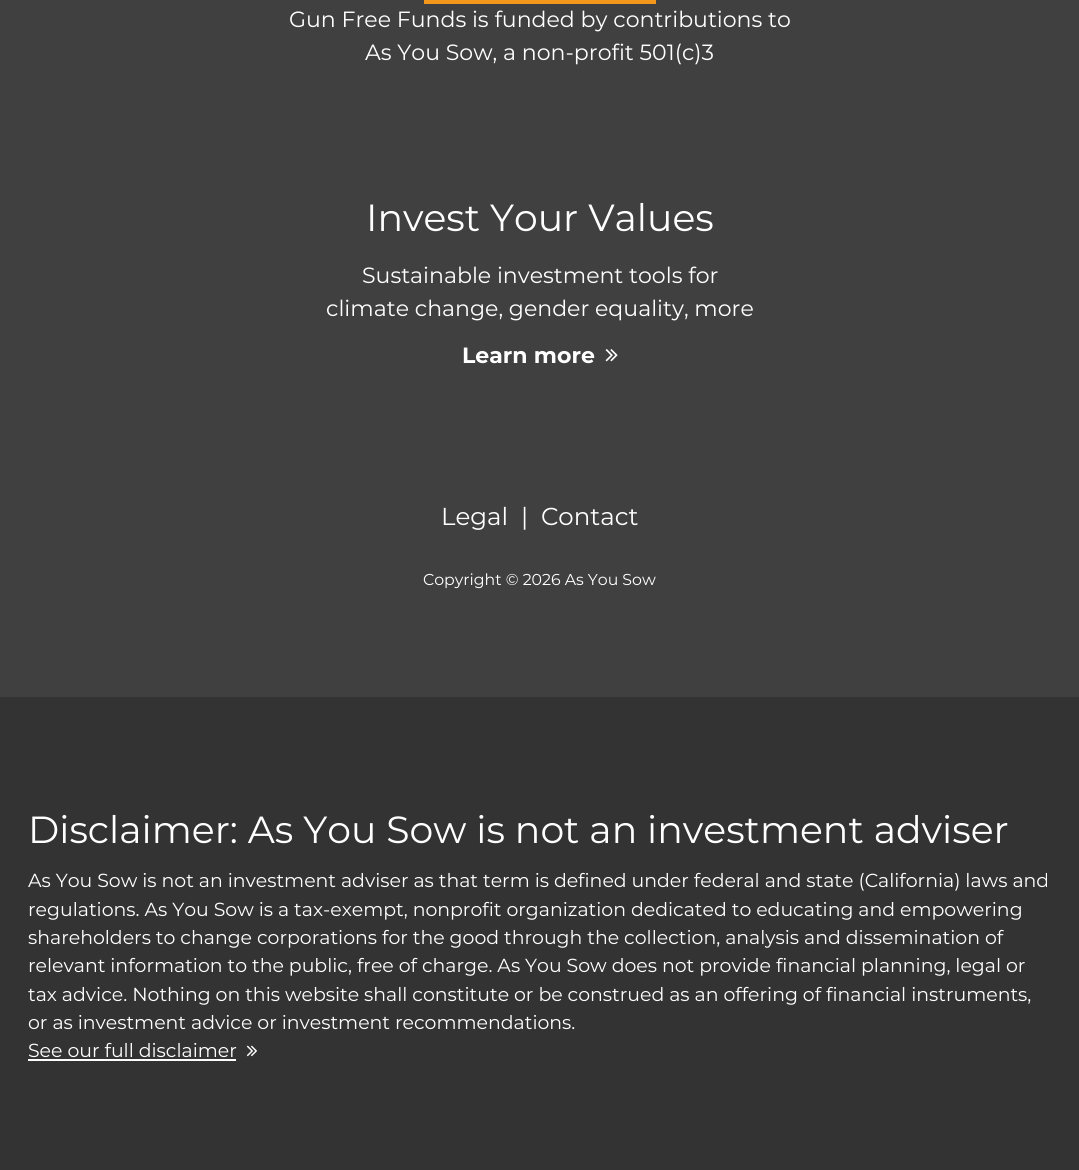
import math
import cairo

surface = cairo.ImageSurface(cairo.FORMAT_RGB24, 1079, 1170)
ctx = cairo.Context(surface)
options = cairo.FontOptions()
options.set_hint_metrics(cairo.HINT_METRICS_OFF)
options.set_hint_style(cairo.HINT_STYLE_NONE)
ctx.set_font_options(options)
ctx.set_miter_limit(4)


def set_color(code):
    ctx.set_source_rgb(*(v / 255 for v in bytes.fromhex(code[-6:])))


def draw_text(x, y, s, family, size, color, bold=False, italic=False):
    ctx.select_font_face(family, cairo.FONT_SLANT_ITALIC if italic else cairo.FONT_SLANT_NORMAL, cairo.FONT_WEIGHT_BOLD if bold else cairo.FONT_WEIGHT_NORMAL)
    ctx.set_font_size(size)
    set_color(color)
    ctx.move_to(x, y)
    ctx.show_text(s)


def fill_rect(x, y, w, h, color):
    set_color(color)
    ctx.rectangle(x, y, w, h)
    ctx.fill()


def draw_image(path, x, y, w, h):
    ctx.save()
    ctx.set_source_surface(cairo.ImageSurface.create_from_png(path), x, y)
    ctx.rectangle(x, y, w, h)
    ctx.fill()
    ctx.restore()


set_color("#404040")
ctx.paint()
fill_rect(424, 0, 232, 4, "#f2961c")
draw_text(289, 27, "Gun Free Funds is funded by contributions to", "Montserrat", 22.05, "#ffffff")
draw_text(365, 60, "As You Sow, a non-profit 501(c)3", "Montserrat", 22.05, "#ffffff")
draw_text(366, 231, "Invest Your Values", "Montserrat", 37.8, "#ffffff")
draw_text(362, 283, "Sustainable investment tools for", "Montserrat", 22.05, "#ffffff")
draw_text(326, 316, "climate change, gender equality, more", "Montserrat", 22.05, "#ffffff")
draw_text(462, 363, "Learn more", "Montserrat", 22.05, "#ffffff", bold=True)
draw_image("assets/img1.png", 605, 349, 13, 13)
draw_text(441, 525, "Legal", "Montserrat", 24.5, "#ffffff")
draw_text(521, 525, "|", "Montserrat", 24.5, "#ffffff")
draw_text(541, 525, "Contact", "Montserrat", 24.5, "#ffffff")
draw_text(423, 585, "Copyright © 2026 As You Sow", "Montserrat", 15.75, "#ffffff")
fill_rect(0, 697, 1079, 473, "#333333")
draw_text(28, 843, "Disclaimer: As You Sow is not an investment adviser", "Montserrat", 37.8, "#ffffff")
draw_text(28, 887, "As You Sow is not an investment adviser as that term is defined under federal and state (California) laws and", "Montserrat", 18.9, "#ffffff")
draw_text(28, 916, "regulations. As You Sow is a tax-exempt, nonprofit organization dedicated to educating and empowering", "Montserrat", 18.9, "#ffffff")
draw_text(28, 944, "shareholders to change corporations for the good through the collection, analysis and dissemination of", "Montserrat", 18.9, "#ffffff")
draw_text(28, 972, "relevant information to the public, free of charge. As You Sow does not provide financial planning, legal or", "Montserrat", 18.9, "#ffffff")
draw_text(28, 1001, "tax advice. Nothing on this website shall constitute or be construed as an offering of financial instruments,", "Montserrat", 18.9, "#ffffff")
draw_text(28, 1029, "or as investment advice or investment recommendations.", "Montserrat", 18.9, "#ffffff")
draw_text(28, 1057, "See our full disclaimer", "Montserrat", 18.9, "#ffffff")
fill_rect(28, 1059, 208, 2, "#ffffff")
draw_image("assets/img2.png", 246, 1045, 11, 12)
surface.write_to_png("output.png")
